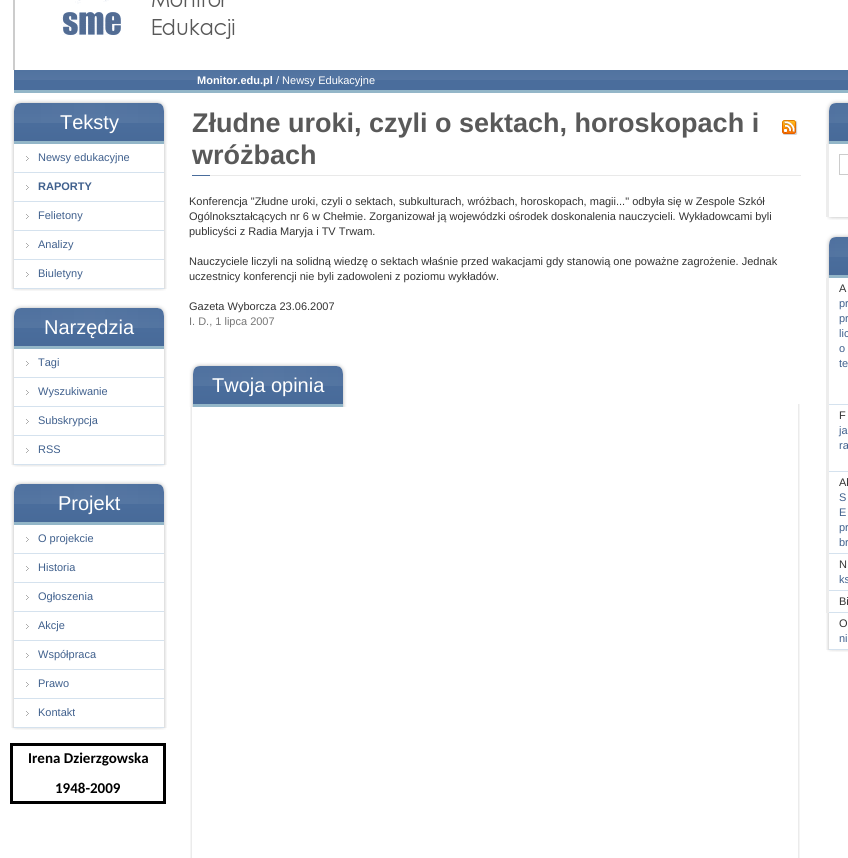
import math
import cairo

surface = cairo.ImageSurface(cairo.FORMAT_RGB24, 848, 858)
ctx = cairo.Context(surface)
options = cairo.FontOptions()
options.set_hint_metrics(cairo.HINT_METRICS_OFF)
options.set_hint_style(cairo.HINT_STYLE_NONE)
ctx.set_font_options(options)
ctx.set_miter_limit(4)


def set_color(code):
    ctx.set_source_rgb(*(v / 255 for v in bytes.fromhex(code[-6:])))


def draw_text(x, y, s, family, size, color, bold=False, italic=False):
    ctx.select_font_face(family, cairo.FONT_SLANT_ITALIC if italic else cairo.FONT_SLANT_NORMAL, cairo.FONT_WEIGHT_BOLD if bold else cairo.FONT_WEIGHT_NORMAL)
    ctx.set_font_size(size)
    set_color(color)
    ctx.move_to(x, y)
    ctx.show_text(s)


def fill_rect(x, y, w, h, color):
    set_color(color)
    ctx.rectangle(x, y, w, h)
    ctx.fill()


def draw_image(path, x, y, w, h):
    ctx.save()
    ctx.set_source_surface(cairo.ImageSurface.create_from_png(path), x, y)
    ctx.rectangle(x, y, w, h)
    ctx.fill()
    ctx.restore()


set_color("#ffffff")
ctx.paint()
fill_rect(13, 0, 2, 70, "#cccccc")
draw_image("assets/img1.png", 56, 0, 179, 39)
draw_image("assets/img2.png", 14, 70, 834, 23)
draw_text(197, 84, "Monitor.edu.pl", "Liberation Sans", 11, "#ffffff", bold=True)
draw_text(276, 84, "/ Newsy Edukacyjne", "Liberation Sans", 11, "#ffffff")
draw_image("assets/img3.png", 12, 289, 154, 2)
draw_image("assets/img4.png", 10, 99, 158, 45)
draw_text(60, 129, "Teksty", "Liberation Sans", 20, "#ffffff")
draw_image("assets/img5.png", 11, 144, 156, 29)
draw_image("assets/img6.png", 26, 156, 3, 5)
fill_rect(14, 172, 150, 1, "#d5e2ee")
draw_text(38, 161, "Newsy edukacyjne", "Liberation Sans", 11, "#40608d")
draw_image("assets/img5.png", 11, 173, 156, 29)
draw_image("assets/img6.png", 26, 185, 3, 5)
fill_rect(14, 201, 150, 1, "#d5e2ee")
draw_text(38, 190, "RAPORTY", "Liberation Sans", 11, "#40608d", bold=True)
draw_image("assets/img5.png", 11, 202, 156, 29)
draw_image("assets/img6.png", 26, 214, 3, 5)
fill_rect(14, 230, 150, 1, "#d5e2ee")
draw_text(38, 219, "Felietony", "Liberation Sans", 11, "#40608d")
draw_image("assets/img5.png", 11, 231, 156, 29)
draw_image("assets/img6.png", 26, 243, 3, 5)
fill_rect(14, 259, 150, 1, "#d5e2ee")
draw_text(38, 248, "Analizy", "Liberation Sans", 11, "#40608d")
draw_image("assets/img5.png", 11, 260, 156, 29)
draw_image("assets/img6.png", 26, 272, 3, 5)
fill_rect(14, 288, 150, 1, "#d5e2ee")
draw_text(38, 277, "Biuletyny", "Liberation Sans", 11, "#40608d")
draw_image("assets/img3.png", 12, 465, 154, 2)
draw_image("assets/img4.png", 10, 304, 158, 45)
draw_text(44, 334, "Narzędzia", "Liberation Sans", 20, "#ffffff")
draw_image("assets/img5.png", 11, 349, 156, 29)
draw_image("assets/img6.png", 26, 361, 3, 5)
fill_rect(14, 377, 150, 1, "#d5e2ee")
draw_text(38, 366, "Tagi", "Liberation Sans", 11, "#40608d")
draw_image("assets/img5.png", 11, 378, 156, 29)
draw_image("assets/img6.png", 26, 390, 3, 5)
fill_rect(14, 406, 150, 1, "#d5e2ee")
draw_text(38, 395, "Wyszukiwanie", "Liberation Sans", 11, "#40608d")
draw_image("assets/img5.png", 11, 407, 156, 29)
draw_image("assets/img6.png", 26, 419, 3, 5)
fill_rect(14, 435, 150, 1, "#d5e2ee")
draw_text(38, 424, "Subskrypcja", "Liberation Sans", 11, "#40608d")
draw_image("assets/img5.png", 11, 436, 156, 29)
draw_image("assets/img6.png", 26, 448, 3, 5)
fill_rect(14, 464, 150, 1, "#d5e2ee")
draw_text(38, 453, "RSS", "Liberation Sans", 11, "#40608d")
draw_image("assets/img3.png", 12, 728, 154, 2)
draw_image("assets/img4.png", 10, 480, 158, 45)
draw_text(58, 510, "Projekt", "Liberation Sans", 20, "#ffffff")
draw_image("assets/img5.png", 11, 525, 156, 29)
draw_image("assets/img6.png", 26, 537, 3, 5)
fill_rect(14, 553, 150, 1, "#d5e2ee")
draw_text(38, 542, "O projekcie", "Liberation Sans", 11, "#40608d")
draw_image("assets/img5.png", 11, 554, 156, 29)
draw_image("assets/img6.png", 26, 566, 3, 5)
fill_rect(14, 582, 150, 1, "#d5e2ee")
draw_text(38, 571, "Historia", "Liberation Sans", 11, "#40608d")
draw_image("assets/img5.png", 11, 583, 156, 29)
draw_image("assets/img6.png", 26, 595, 3, 5)
fill_rect(14, 611, 150, 1, "#d5e2ee")
draw_text(38, 600, "Ogłoszenia", "Liberation Sans", 11, "#40608d")
draw_image("assets/img5.png", 11, 612, 156, 29)
draw_image("assets/img6.png", 26, 624, 3, 5)
fill_rect(14, 640, 150, 1, "#d5e2ee")
draw_text(38, 629, "Akcje", "Liberation Sans", 11, "#40608d")
draw_image("assets/img5.png", 11, 641, 156, 29)
draw_image("assets/img6.png", 26, 653, 3, 5)
fill_rect(14, 669, 150, 1, "#d5e2ee")
draw_text(38, 658, "Współpraca", "Liberation Sans", 11, "#40608d")
draw_image("assets/img5.png", 11, 670, 156, 29)
draw_image("assets/img6.png", 26, 682, 3, 5)
fill_rect(14, 698, 150, 1, "#d5e2ee")
draw_text(38, 687, "Prawo", "Liberation Sans", 11, "#40608d")
draw_image("assets/img5.png", 11, 699, 156, 29)
draw_image("assets/img6.png", 26, 711, 3, 5)
fill_rect(14, 727, 150, 1, "#d5e2ee")
draw_text(38, 716, "Kontakt", "Liberation Sans", 11, "#40608d")
ctx.rectangle(11.5, 744.5, 153, 58)
set_color("#000000")
ctx.set_line_width(3)
ctx.stroke()
draw_text(28, 763, "Irena Dzierzgowska", "Carlito", 15, "#000000", bold=True)
draw_text(55, 793, "1948-2009", "Carlito", 15, "#000000", bold=True)
draw_text(192, 132, "Złudne uroki, czyli o sektach, horoskopach i", "Liberation Sans", 27, "#595959", bold=True)
draw_text(192, 164, "wróżbach", "Liberation Sans", 27, "#595959", bold=True)
draw_image("assets/img7.png", 782, 120, 16, 15)
fill_rect(210, 175, 591, 1, "#e9e9e9")
fill_rect(192, 175, 18, 1, "#4a6d9c")
draw_text(189, 205, "Konferencja \"Złudne uroki, czyli o sektach, subkulturach, wróżbach, horoskopach, magii...\" odbyła się w Zespole Szkół", "Liberation Sans", 11, "#333333")
draw_text(189, 220, "Ogólnokształcących nr 6 w Chełmie. Zorganizował ją wojewódzki ośrodek doskonalenia nauczycieli. Wykładowcami byli", "Liberation Sans", 11, "#333333")
draw_text(189, 235, "publicyści z Radia Maryja i TV Trwam.", "Liberation Sans", 11, "#333333")
draw_text(189, 265, "Nauczyciele liczyli na solidną wiedzę o sektach właśnie przed wakacjami gdy stanowią one poważne zagrożenie. Jednak", "Liberation Sans", 11, "#333333")
draw_text(189, 280, "uczestnicy konferencji nie byli zadowoleni z poziomu wykładów.", "Liberation Sans", 11, "#333333")
draw_text(189, 310, "Gazeta Wyborcza 23.06.2007", "Liberation Sans", 11, "#333333")
draw_text(189, 325, "I. D., 1 lipca 2007", "Liberation Sans", 11, "#777777")
draw_image("assets/img8.png", 190, 404, 610, 454)
draw_image("assets/img4.png", 189, 362, 158, 45)
draw_text(212, 392, "Twoja opinia", "Liberation Sans", 20, "#ffffff")
draw_image("assets/img9.png", 825, 99, 23, 45)
draw_image("assets/img10.png", 827, 217, 21, 3)
fill_rect(826, 144, 3, 73, "#ededed")
ctx.rectangle(839.5, 154.5, 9, 20)
set_color("#cccccc")
ctx.set_line_width(1)
ctx.stroke()
draw_image("assets/img9.png", 825, 233, 23, 45)
draw_image("assets/img11.png", 827, 650, 21, 2)
fill_rect(826, 278, 3, 335, "#ededed")
fill_rect(829, 404, 19, 1, "#d5e2ee")
draw_text(839, 292, "A", "Liberation Sans", 11, "#333333")
draw_text(839, 307, "pr", "Liberation Sans", 11, "#40608d")
draw_text(839, 322, "pr", "Liberation Sans", 11, "#40608d")
draw_text(839, 337, "lic", "Liberation Sans", 11, "#40608d")
draw_text(839, 352, "o", "Liberation Sans", 11, "#40608d")
draw_text(839, 367, "te", "Liberation Sans", 11, "#40608d")
fill_rect(829, 471, 19, 1, "#d5e2ee")
draw_text(839, 419, "F", "Liberation Sans", 11, "#333333")
draw_text(839, 434, "ja", "Liberation Sans", 11, "#40608d")
draw_text(839, 449, "ra", "Liberation Sans", 11, "#40608d")
fill_rect(829, 553, 19, 1, "#d5e2ee")
draw_text(839, 486, "Ak", "Liberation Sans", 11, "#333333")
draw_text(839, 501, "S", "Liberation Sans", 11, "#40608d")
draw_text(839, 516, "E", "Liberation Sans", 11, "#40608d")
draw_text(839, 531, "pr", "Liberation Sans", 11, "#40608d")
draw_text(839, 546, "br", "Liberation Sans", 11, "#40608d")
fill_rect(829, 590, 19, 1, "#d5e2ee")
draw_text(839, 568, "N", "Liberation Sans", 11, "#333333")
draw_text(839, 583, "ks", "Liberation Sans", 11, "#40608d")
fill_rect(829, 612, 19, 1, "#d5e2ee")
draw_text(839, 605, "Bi", "Liberation Sans", 11, "#333333")
draw_image("assets/img12.png", 826, 613, 22, 37)
fill_rect(829, 649, 19, 1, "#d5e2ee")
draw_text(839, 627, "O", "Liberation Sans", 11, "#333333")
draw_text(839, 642, "ni", "Liberation Sans", 11, "#40608d")
surface.write_to_png("output.png")
